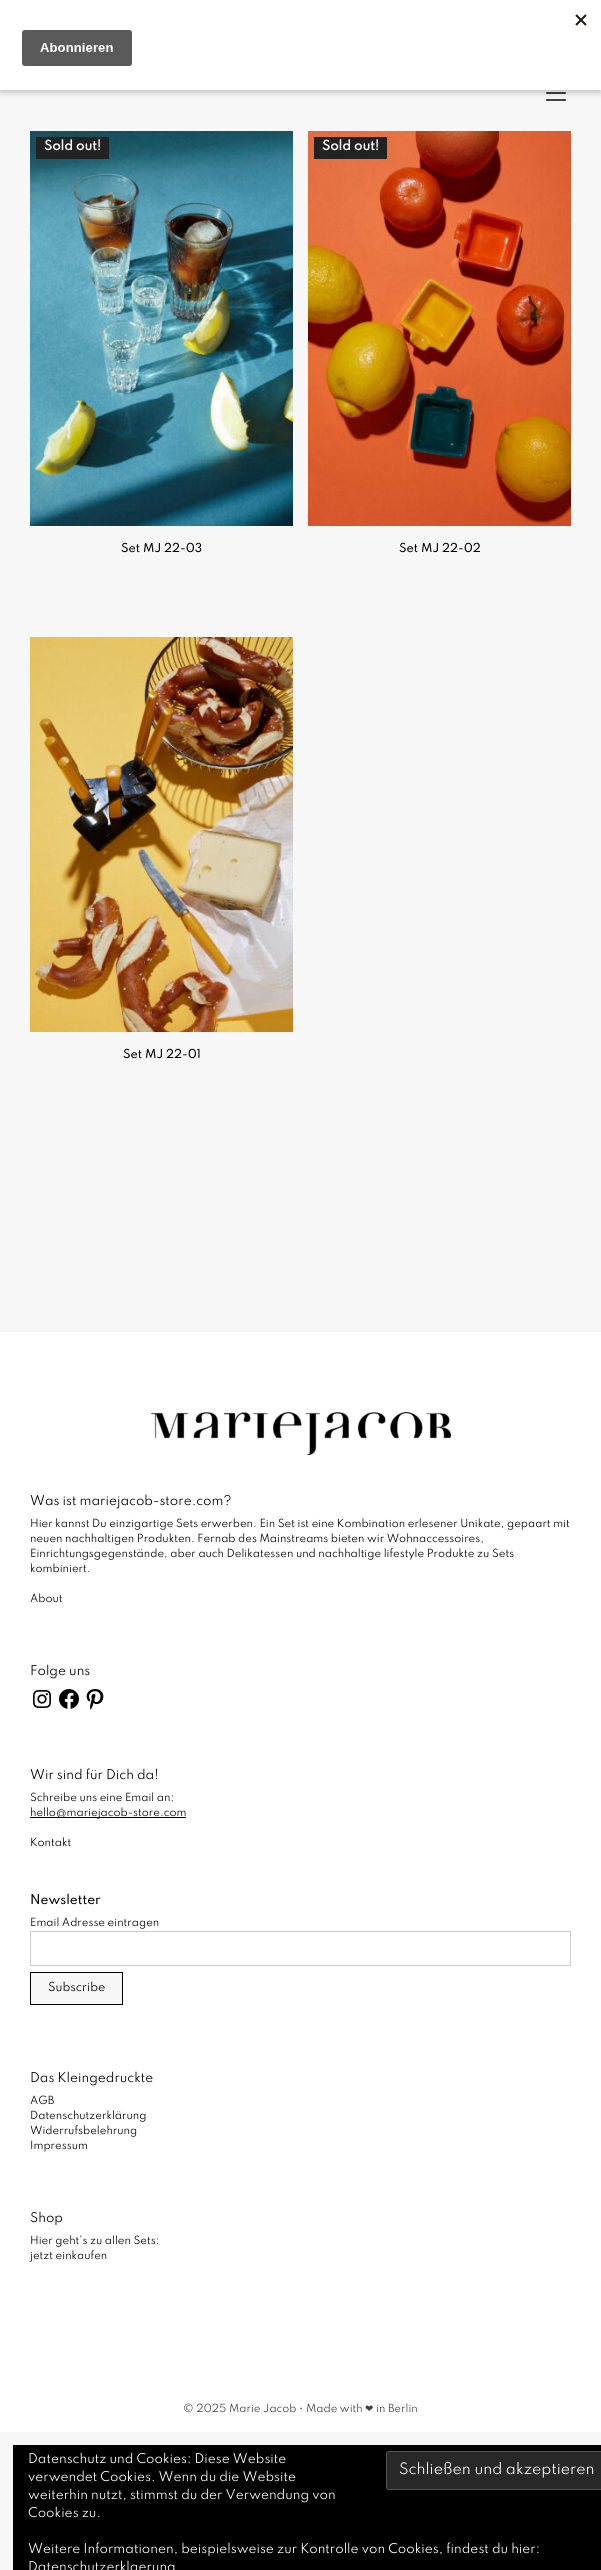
import math
import cairo

surface = cairo.ImageSurface(cairo.FORMAT_RGB24, 601, 2570)
ctx = cairo.Context(surface)
options = cairo.FontOptions()
options.set_hint_metrics(cairo.HINT_METRICS_OFF)
options.set_hint_style(cairo.HINT_STYLE_NONE)
ctx.set_font_options(options)
ctx.set_miter_limit(4)


def set_color(code):
    ctx.set_source_rgb(*(v / 255 for v in bytes.fromhex(code[-6:])))


def draw_text(x, y, s, family, size, color, bold=False, italic=False):
    ctx.select_font_face(family, cairo.FONT_SLANT_ITALIC if italic else cairo.FONT_SLANT_NORMAL, cairo.FONT_WEIGHT_BOLD if bold else cairo.FONT_WEIGHT_NORMAL)
    ctx.set_font_size(size)
    set_color(color)
    ctx.move_to(x, y)
    ctx.show_text(s)


def fill_rect(x, y, w, h, color):
    set_color(color)
    ctx.rectangle(x, y, w, h)
    ctx.fill()


def rounded_rect(x, y, w, h, r):
    ctx.new_sub_path()
    for i, (u, v) in enumerate([(x + w - r, y + h - r), (x + r, y + h - r), (x + r, y + r), (x + w - r, y + r)]):
        ctx.arc(u, v, r, i * math.pi / 2, (i + 1) * math.pi / 2)
    ctx.close_path()


def draw_shadow(x, y, w, h, r, blur, alpha):
    ctx.push_group_with_content(cairo.CONTENT_ALPHA)
    ctx.set_operator(cairo.OPERATOR_SOURCE)
    for i in range(15, -16, -2):
        e = blur * i / 6
        if min(w, h) + 2 * e > 0:
            ctx.set_source_rgba(0, 0, 0, alpha * math.erfc((i - 1) / 8.5) / 2)
            rounded_rect(x - e, y - e, w + 2 * e, h + 2 * e, max(0, min(r + e + blur * .6, min(w, h) / 2 + e)))
            ctx.fill()
    ctx.mask(ctx.pop_group())


def draw_image(path, x, y, w, h):
    ctx.save()
    ctx.set_source_surface(cairo.ImageSurface.create_from_png(path), x, y)
    ctx.rectangle(x, y, w, h)
    ctx.fill()
    ctx.restore()


set_color("#f7f7f7")
ctx.paint()
set_color("#404040")
rounded_rect(546, 92, 20, 2, 1)
ctx.fill()
rounded_rect(546, 99, 20, 2, 1)
ctx.fill()
set_color("#000000")
draw_shadow(0, 3, 601, 90, 0, 3, 0.2)
fill_rect(0, 0, 601, 90, "#ffffff")
draw_image("assets/img1.png", 22, 14, 565, 52)
draw_image("assets/img2.png", 30, 131, 263, 395)
fill_rect(36, 137, 73, 22, "#222222")
draw_text(44, 150, "Sold out!", "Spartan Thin", 12, "#ffffff", bold=True)
draw_text(121, 552, "Set MJ 22-03", "Spartan Thin Medium", 11, "#000000")
draw_image("assets/img3.png", 308, 131, 263, 395)
fill_rect(314, 137, 73, 22, "#222222")
draw_text(322, 150, "Sold out!", "Spartan Thin", 12, "#ffffff", bold=True)
draw_text(399, 552, "Set MJ 22-02", "Spartan Thin Medium", 11, "#000000")
draw_image("assets/img4.png", 30, 637, 263, 395)
draw_text(123, 1058, "Set MJ 22-01", "Spartan Thin Medium", 11, "#000000")
fill_rect(0, 1332, 601, 1100, "#ffffff")
draw_image("assets/img5.png", 151, 1412, 300, 43)
draw_text(30, 1505, "Was ist mariejacob-store.com?", "Spartan Thin", 12, "#000000")
draw_text(30, 1527, "Hier kannst Du einzigartige Sets erwerben. Ein Set ist eine Kombination erlesener Unikate, gepaart mit", "Spartan Thin", 10, "#000000")
draw_text(30, 1542, "neuen nachhaltigen Produkten. Fernab des Mainstreams bieten wir Wohnaccessoires,", "Spartan Thin", 10, "#000000")
draw_text(30, 1557, "Einrichtungsgegenstände, aber auch Delikatessen und nachhaltige lifestyle Produkte zu Sets", "Spartan Thin", 10, "#000000")
draw_text(30, 1572, "kombiniert.", "Spartan Thin", 10, "#000000")
draw_text(30, 1602, "About", "Spartan Thin", 10, "#000000")
draw_text(30, 1675, "Folge uns", "Spartan Thin", 12, "#000000")
draw_image("assets/img6.png", 33, 1690, 18, 18)
draw_image("assets/img7.png", 59, 1689, 20, 20)
draw_image("assets/img8.png", 86, 1689, 18, 21)
draw_text(30, 1779, "Wir sind für Dich da!", "Spartan Thin", 12, "#000000")
draw_text(30, 1801, "Schreibe uns eine Email an:", "Spartan Thin", 10, "#000000")
fill_rect(30, 1817, 156, 1, "#000000")
draw_text(30, 1816, "hello@mariejacob-store.com", "Spartan Thin", 10, "#000000")
draw_text(30, 1846, "Kontakt", "Spartan Thin", 10, "#000000")
draw_text(30, 1904, "Newsletter", "Spartan Thin Medium", 12, "#000000")
draw_text(30, 1926, "Email Adresse eintragen", "Spartan Thin", 10, "#000000")
ctx.rectangle(30.5, 1931.5, 540, 34)
set_color("#cccccc")
ctx.set_line_width(1)
ctx.stroke()
set_color("#f7f7f7")
ctx.rectangle(30.5, 1972.5, 92, 32)
ctx.fill_preserve()
set_color("#000000")
ctx.stroke()
draw_text(48, 1991, "Subscribe", "Spartan Thin", 11, "#000000")
draw_text(30, 2082, "Das Kleingedruckte", "Spartan Thin", 12, "#000000")
draw_text(30, 2104, "AGB", "Spartan Thin", 10, "#000000")
draw_text(30, 2119, "Datenschutzerklärung", "Spartan Thin", 10, "#000000")
draw_text(30, 2134, "Widerrufsbelehrung", "Spartan Thin", 10, "#000000")
draw_text(30, 2149, "Impressum", "Spartan Thin", 10, "#000000")
draw_text(30, 2222, "Shop", "Spartan Thin", 12, "#000000")
draw_text(30, 2244, "Hier geht’s zu allen Sets:", "Spartan Thin", 10, "#000000")
draw_text(30, 2259, "jetzt einkaufen", "Spartan Thin", 10, "#000000")
draw_text(183, 2412, "© 2025 Marie Jacob • Made with", "Spartan Thin", 10, "#404040")
draw_text(365, 2412, "❤", "DejaVu Sans", 10, "#404040")
draw_text(376, 2412, "in Berlin", "Spartan Thin", 10, "#404040")
fill_rect(13, 2445, 588, 125, "#000000")
draw_text(28, 2463, "Datenschutz und Cookies: Diese Website", "Spartan Thin", 12, "#ffffff")
draw_text(28, 2481, "verwendet Cookies. Wenn du die Website", "Spartan Thin", 12, "#ffffff")
set_color("#282828")
rounded_rect(386.5, 2451.5, 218, 38, 2.5)
ctx.fill_preserve()
set_color("#535353")
ctx.stroke()
draw_text(399, 2474, "Schließen und akzeptieren", "Spartan Thin", 14, "#ffffff")
draw_text(28, 2499, "weiterhin nutzt, stimmst du der Verwendung von", "Spartan Thin", 12, "#ffffff")
draw_text(28, 2517, "Cookies zu.", "Spartan Thin", 12, "#ffffff")
draw_text(28, 2553, "Weitere Informationen, beispielsweise zur Kontrolle von Cookies, findest du hier:", "Spartan Thin", 12, "#ffffff")
draw_text(28, 2571, "Datenschutzerklaerung", "Spartan Thin", 12, "#ffffff")
surface.write_to_png("output.png")
